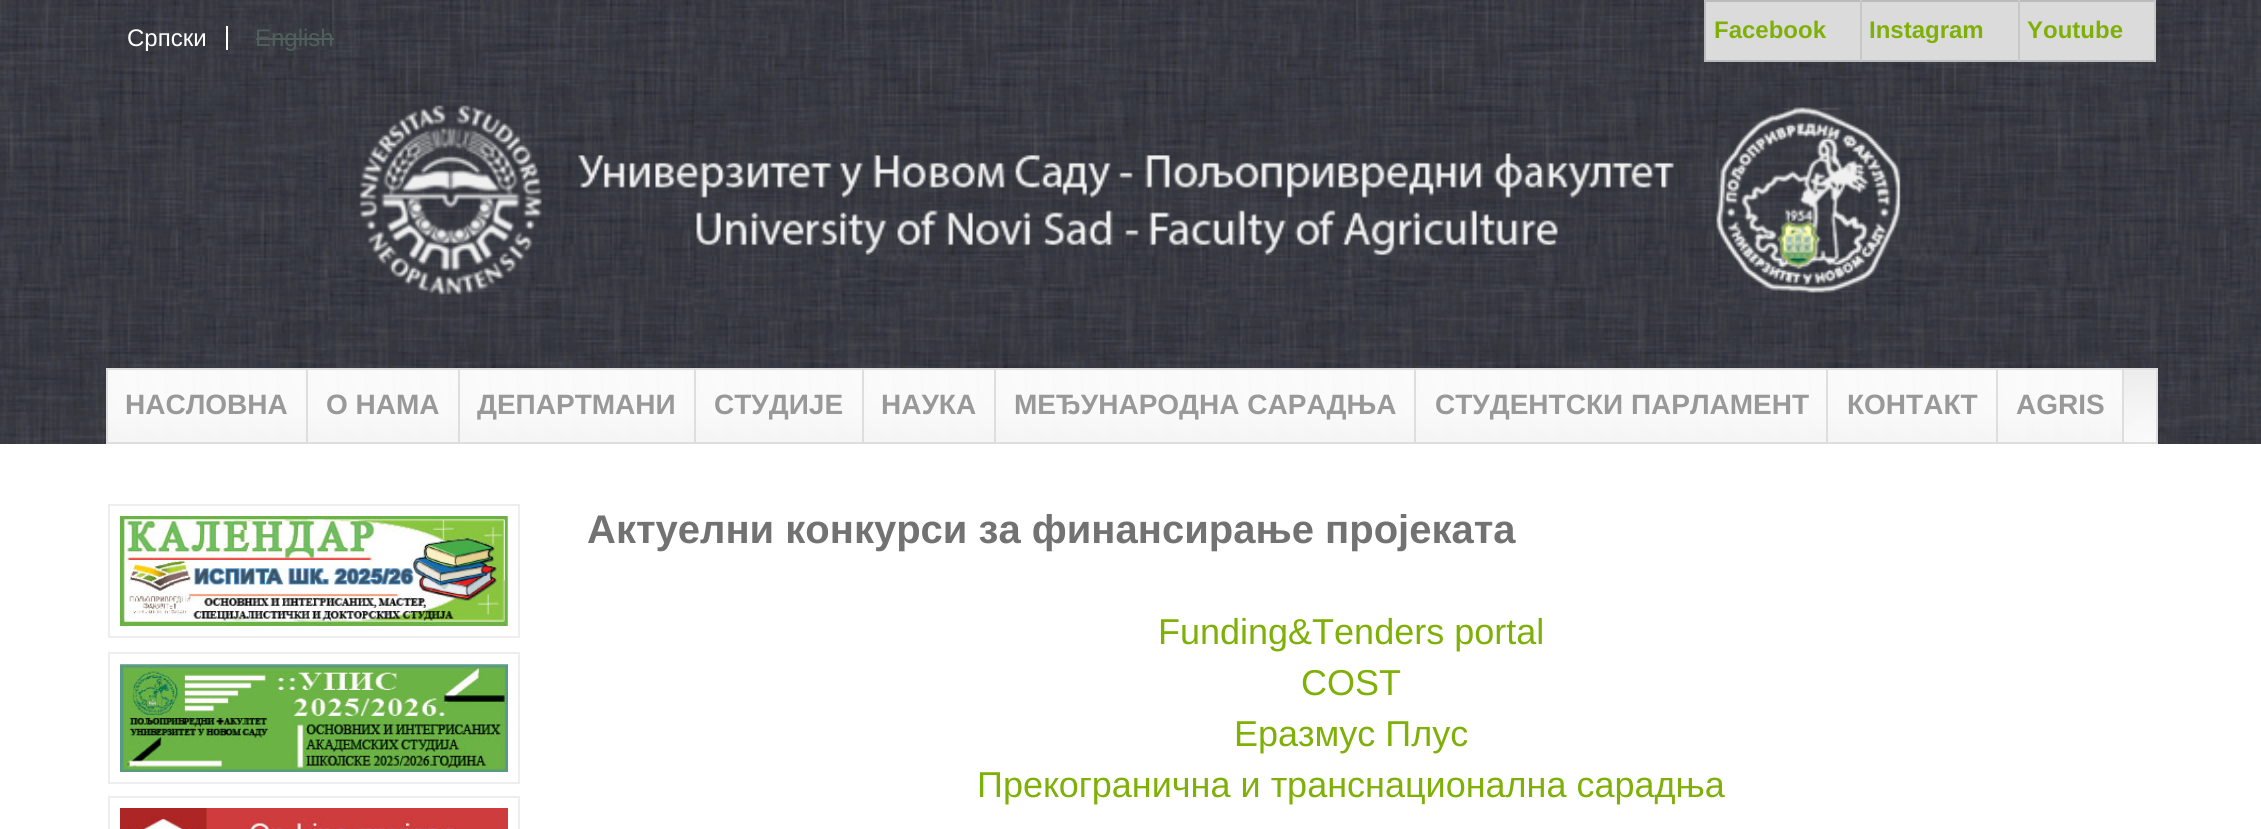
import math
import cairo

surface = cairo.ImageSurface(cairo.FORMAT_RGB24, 2261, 829)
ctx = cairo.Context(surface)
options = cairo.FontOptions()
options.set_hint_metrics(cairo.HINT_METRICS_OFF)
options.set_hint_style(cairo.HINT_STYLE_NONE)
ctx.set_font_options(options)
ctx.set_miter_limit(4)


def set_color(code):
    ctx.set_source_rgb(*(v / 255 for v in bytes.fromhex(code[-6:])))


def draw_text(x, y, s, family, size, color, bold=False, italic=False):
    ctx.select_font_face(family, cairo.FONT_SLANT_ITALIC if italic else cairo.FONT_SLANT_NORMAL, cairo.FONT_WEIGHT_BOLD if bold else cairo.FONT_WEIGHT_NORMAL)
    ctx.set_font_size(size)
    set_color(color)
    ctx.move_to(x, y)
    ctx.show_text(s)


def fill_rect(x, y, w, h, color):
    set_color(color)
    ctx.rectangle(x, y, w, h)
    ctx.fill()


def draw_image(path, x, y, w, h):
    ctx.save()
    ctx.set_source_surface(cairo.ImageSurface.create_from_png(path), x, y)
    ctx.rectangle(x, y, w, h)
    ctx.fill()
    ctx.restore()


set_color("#ffffff")
ctx.paint()
draw_image("assets/img1.png", 0, 0, 2261, 444)
fill_rect(226, 26, 2, 24, "#ffffff")
draw_text(127, 46, "Српски", "Liberation Sans", 24, "#ffffff")
draw_text(255, 46, "English", "Liberation Sans", 24, "#515f5c")
fill_rect(256, 38, 78, 2, "#515f5c")
fill_rect(1704, 0, 452, 2, "#bbbbbb")
fill_rect(1704, 60, 452, 2, "#bbbbbb")
fill_rect(1704, 0, 2, 62, "#bbbbbb")
fill_rect(1706, 2, 154, 58, "#dbdbdb")
fill_rect(1860, 0, 2, 62, "#c8c7c7")
draw_text(1714, 38, "Facebook", "Liberation Sans", 24, "#7fb008", bold=True)
fill_rect(1862, 2, 156, 58, "#dbdbdb")
fill_rect(2018, 0, 2, 62, "#c8c7c7")
draw_text(1869, 38, "Instagram", "Liberation Sans", 24, "#7fb008", bold=True)
fill_rect(2020, 2, 134, 58, "#dbdbdb")
fill_rect(2154, 0, 2, 62, "#c8c7c7")
draw_text(2027, 38, "Youtube", "Liberation Sans", 24, "#7fb008", bold=True)
draw_image("assets/img2.png", 359, 105, 1542, 190)
draw_image("assets/img3.png", 2124, 370, 32, 72)
ctx.rectangle(107, 369, 2050, 74)
set_color("#dedede")
ctx.stroke()
fill_rect(306, 370, 2, 72, "#dedede")
draw_image("assets/img4.png", 108, 370, 198, 72)
draw_text(125, 414, "НАСЛОВНА", "Liberation Sans", 28, "#999999", bold=True)
fill_rect(458, 370, 2, 72, "#dedede")
draw_image("assets/img5.png", 308, 370, 150, 72)
draw_text(326, 414, "О НАМА", "Liberation Sans", 28, "#999999", bold=True)
fill_rect(694, 370, 2, 72, "#dedede")
draw_image("assets/img6.png", 460, 370, 234, 72)
draw_text(477, 414, "ДЕПАРТМАНИ", "Liberation Sans", 28, "#999999", bold=True)
fill_rect(862, 370, 2, 72, "#dedede")
draw_image("assets/img7.png", 696, 370, 166, 72)
draw_text(714, 414, "СТУДИЈЕ", "Liberation Sans", 28, "#999999", bold=True)
fill_rect(994, 370, 2, 72, "#dedede")
draw_image("assets/img8.png", 864, 370, 130, 72)
draw_text(881, 414, "НАУКА", "Liberation Sans", 28, "#999999", bold=True)
fill_rect(1414, 370, 2, 72, "#dedede")
draw_image("assets/img9.png", 996, 370, 418, 72)
draw_text(1014, 414, "МЕЂУНАРОДНА САРАДЊА", "Liberation Sans", 28, "#999999", bold=True)
fill_rect(1826, 370, 2, 72, "#dedede")
draw_image("assets/img10.png", 1416, 370, 410, 72)
draw_text(1435, 414, "СТУДЕНТСКИ ПАРЛАМЕНТ", "Liberation Sans", 28, "#999999", bold=True)
fill_rect(1996, 370, 2, 72, "#dedede")
draw_image("assets/img11.png", 1828, 370, 168, 72)
draw_text(1847, 414, "КОНТАКТ", "Liberation Sans", 28, "#999999", bold=True)
fill_rect(2122, 370, 2, 72, "#dedede")
draw_image("assets/img12.png", 1998, 370, 124, 72)
draw_text(2016, 414, "AGRIS", "Liberation Sans", 28, "#999999", bold=True)
ctx.rectangle(109, 505, 410, 132)
set_color("#eeeeee")
ctx.stroke()
draw_image("assets/img13.png", 120, 516, 388, 110)
ctx.rectangle(109, 653, 410, 130)
ctx.stroke()
draw_image("assets/img14.png", 120, 664, 388, 108)
ctx.rectangle(109, 797, 410, 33)
ctx.stroke()
draw_image("assets/img15.png", 120, 808, 388, 21)
draw_text(587, 543, "Актуелни конкурси за финансирање пројеката", "Liberation Sans", 40, "#727272", bold=True)
draw_text(1158, 644, "Funding&Tenders portal", "Liberation Sans", 36, "#7fb008")
draw_text(1301, 695, "COST", "Liberation Sans", 36, "#7fb008")
draw_text(1234, 746, "Еразмус Плус", "Liberation Sans", 36, "#7fb008")
draw_text(977, 797, "Прекогранична и транснационална сарадња", "Liberation Sans", 36, "#7fb008")
surface.write_to_png("output.png")
